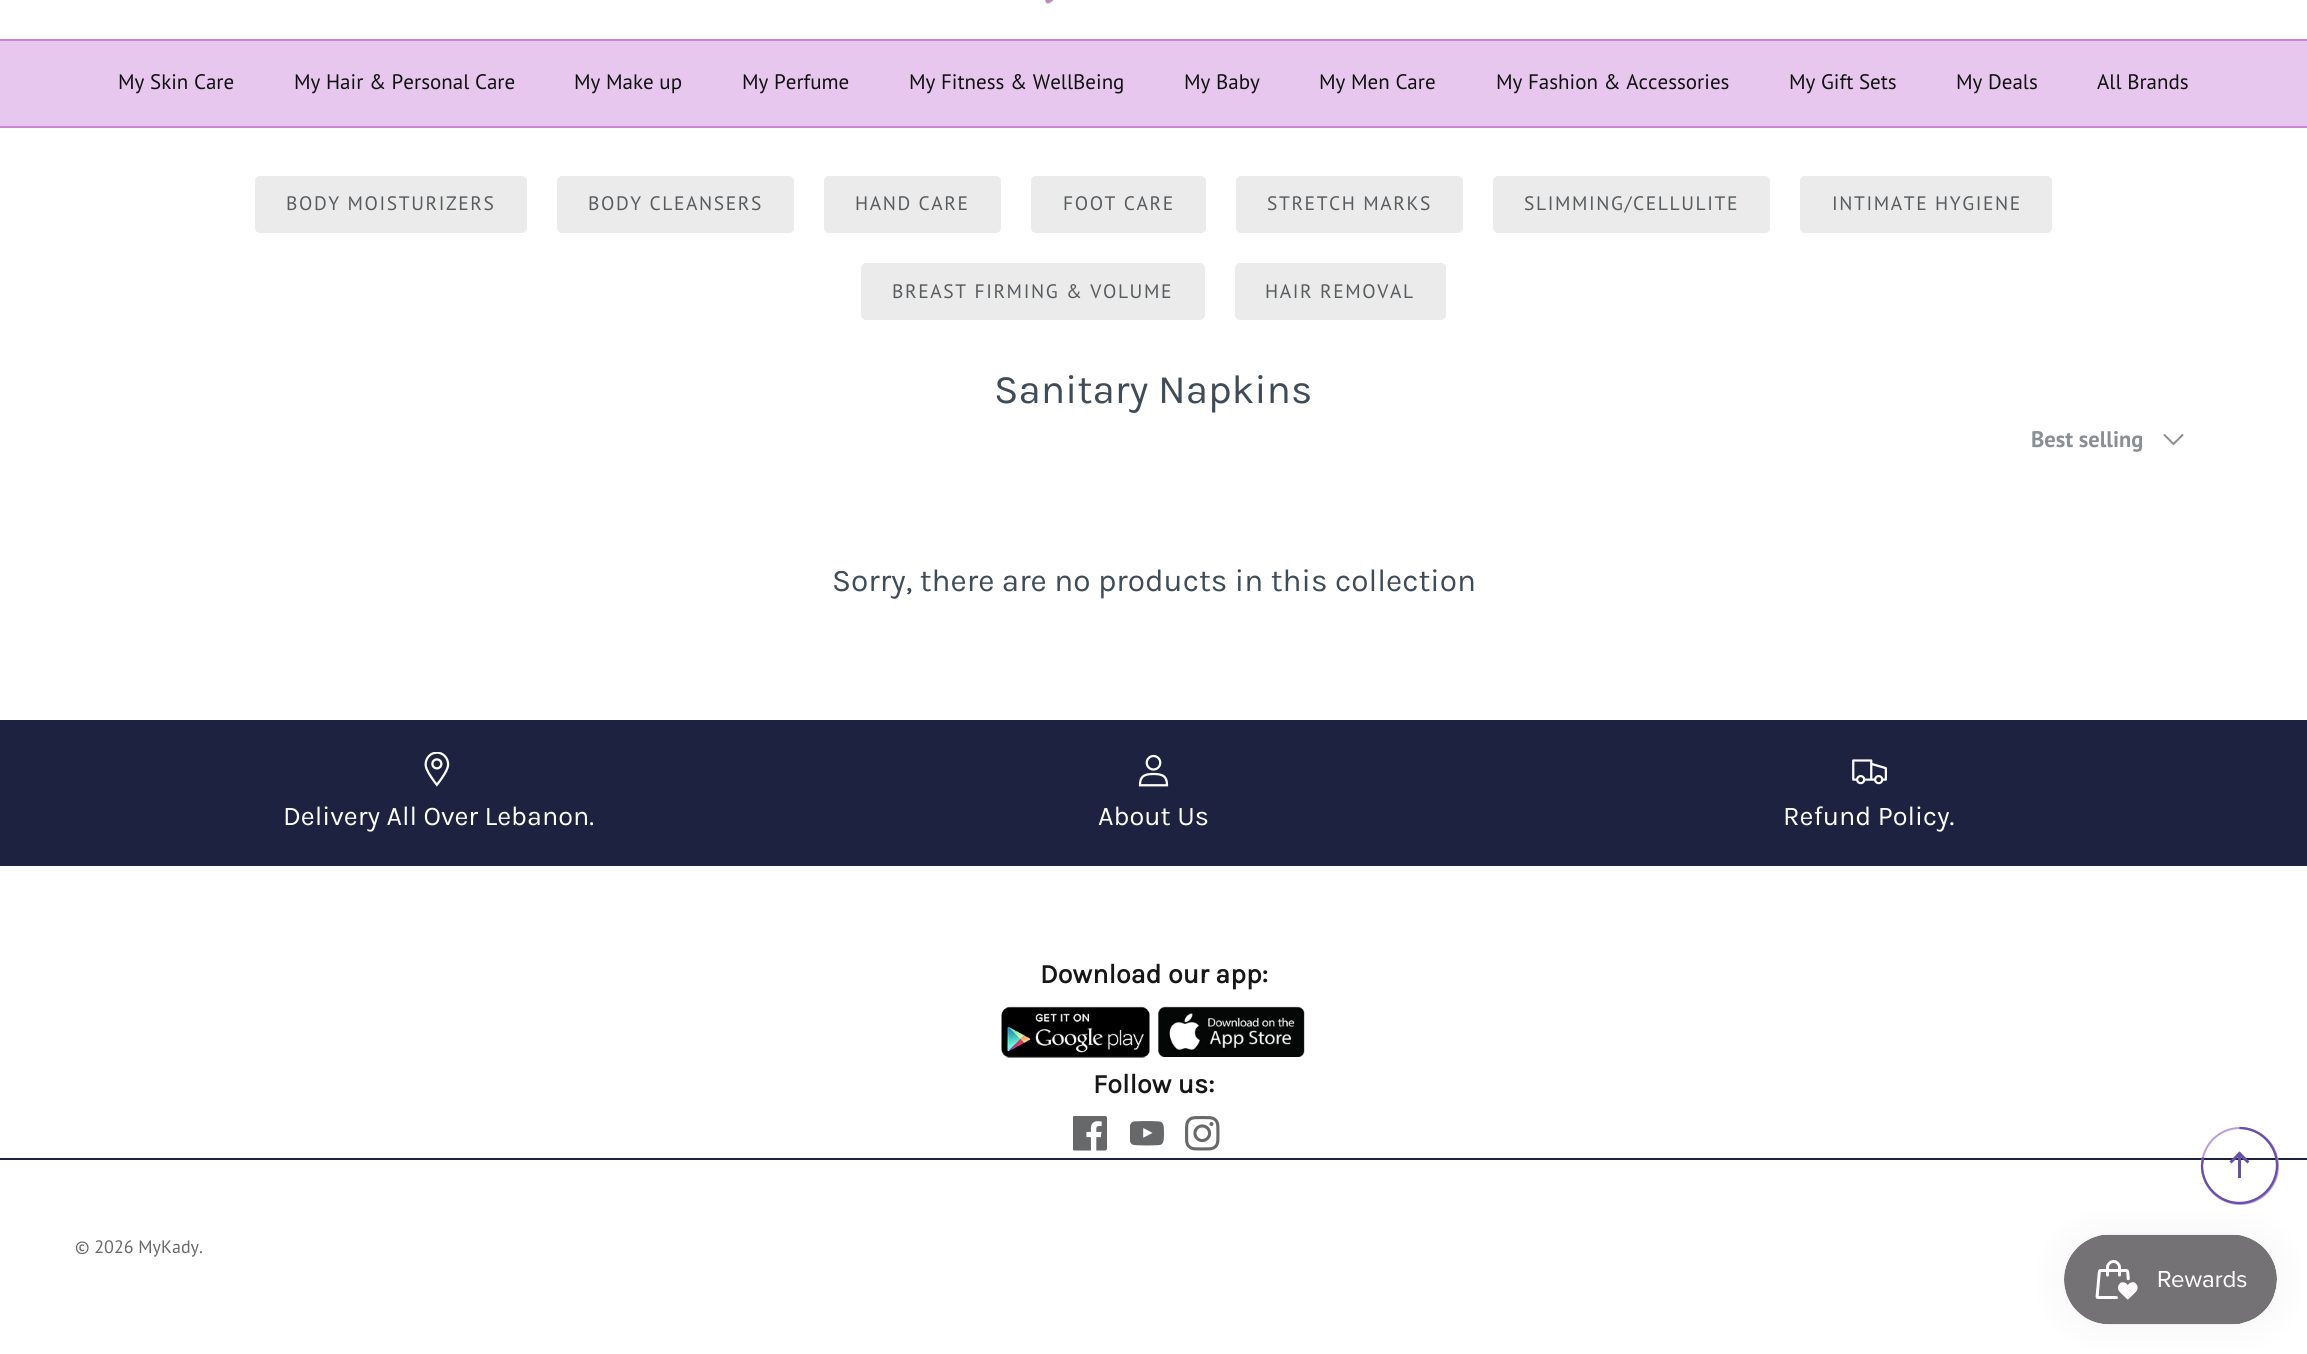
import math
import cairo

surface = cairo.ImageSurface(cairo.FORMAT_RGB24, 2307, 1354)
ctx = cairo.Context(surface)
options = cairo.FontOptions()
options.set_hint_metrics(cairo.HINT_METRICS_OFF)
options.set_hint_style(cairo.HINT_STYLE_NONE)
ctx.set_font_options(options)
ctx.set_miter_limit(4)


def set_color(code):
    ctx.set_source_rgb(*(v / 255 for v in bytes.fromhex(code[-6:])))


def draw_text(x, y, s, family, size, color, bold=False, italic=False):
    ctx.select_font_face(family, cairo.FONT_SLANT_ITALIC if italic else cairo.FONT_SLANT_NORMAL, cairo.FONT_WEIGHT_BOLD if bold else cairo.FONT_WEIGHT_NORMAL)
    ctx.set_font_size(size)
    set_color(color)
    ctx.move_to(x, y)
    ctx.show_text(s)


def draw_spaced(x, y, s, letter, word):
    ctx.move_to(x, y)
    for ch in s:
        ctx.show_text(ch)
        ctx.rel_move_to(letter + word * (ch == ' '), 0)


def fill_rect(x, y, w, h, color):
    set_color(color)
    ctx.rectangle(x, y, w, h)
    ctx.fill()


def rounded_rect(x, y, w, h, r):
    ctx.new_sub_path()
    for i, (u, v) in enumerate([(x + w - r, y + h - r), (x + r, y + h - r), (x + r, y + r), (x + w - r, y + r)]):
        ctx.arc(u, v, r, i * math.pi / 2, (i + 1) * math.pi / 2)
    ctx.close_path()


def draw_shadow(x, y, w, h, r, blur, alpha):
    ctx.push_group_with_content(cairo.CONTENT_ALPHA)
    ctx.set_operator(cairo.OPERATOR_SOURCE)
    for i in range(15, -16, -2):
        e = blur * i / 6
        if min(w, h) + 2 * e > 0:
            ctx.set_source_rgba(0, 0, 0, alpha * math.erfc((i - 1) / 8.5) / 2)
            rounded_rect(x - e, y - e, w + 2 * e, h + 2 * e, max(0, min(r + e + blur * .6, min(w, h) / 2 + e)))
            ctx.fill()
    ctx.mask(ctx.pop_group())


def draw_image(path, x, y, w, h):
    ctx.save()
    ctx.set_source_surface(cairo.ImageSurface.create_from_png(path), x, y)
    ctx.rectangle(x, y, w, h)
    ctx.fill()
    ctx.restore()


set_color("#ffffff")
ctx.paint()
fill_rect(0, 39, 2307, 2, "#c688d2")
draw_image("assets/img1.png", 1045, 0, 9, 7)
fill_rect(0, 126, 2307, 2, "#c688d2")
fill_rect(0, 41, 2307, 85, "#e8c7ef")
draw_text(118, 89, "My Skin Care", "PT Sans", 21, "#101011")
draw_text(294, 89, "My Hair & Personal Care", "PT Sans", 21, "#101011")
draw_text(574, 89, "My Make up", "PT Sans", 21, "#101011")
draw_text(742, 89, "My Perfume", "PT Sans", 21, "#101011")
draw_text(909, 89, "My Fitness & WellBeing", "PT Sans", 21, "#101011")
draw_text(1184, 89, "My Baby", "PT Sans", 21, "#101011")
draw_text(1319, 89, "My Men Care", "PT Sans", 21, "#101011")
draw_text(1496, 89, "My Fashion & Accessories", "PT Sans", 21, "#101011")
draw_text(1789, 89, "My Gift Sets", "PT Sans", 21, "#101011")
draw_text(1956, 89, "My Deals", "PT Sans", 21, "#101011")
draw_text(2097, 89, "All Brands", "PT Sans", 21, "#101011")
set_color("#ebebeb")
rounded_rect(256, 177, 270, 55, 4)
ctx.fill_preserve()
ctx.stroke()
ctx.set_font_size(19.5)
set_color("#585c5f")
draw_spaced(286, 210, "BODY MOISTURIZERS", 1.6, 0)
set_color("#ebebeb")
rounded_rect(558, 177, 235, 55, 4)
ctx.fill_preserve()
ctx.stroke()
set_color("#585c5f")
draw_spaced(588, 210, "BODY CLEANSERS", 1.6, 0)
set_color("#ebebeb")
rounded_rect(825, 177, 175, 55, 4)
ctx.fill_preserve()
ctx.stroke()
set_color("#585c5f")
draw_spaced(855, 210, "HAND CARE", 1.6, 0)
set_color("#ebebeb")
rounded_rect(1032, 177, 173, 55, 4)
ctx.fill_preserve()
ctx.stroke()
set_color("#585c5f")
draw_spaced(1063, 210, "FOOT CARE", 1.6, 0)
set_color("#ebebeb")
rounded_rect(1237, 177, 225, 55, 4)
ctx.fill_preserve()
ctx.stroke()
set_color("#585c5f")
draw_spaced(1267, 210, "STRETCH MARKS", 1.6, 0)
set_color("#ebebeb")
rounded_rect(1494, 177, 275, 55, 4)
ctx.fill_preserve()
ctx.stroke()
set_color("#585c5f")
draw_spaced(1524, 210, "SLIMMING/CELLULITE", 1.6, 0)
set_color("#ebebeb")
rounded_rect(1801, 177, 250, 55, 4)
ctx.fill_preserve()
ctx.stroke()
set_color("#585c5f")
draw_spaced(1832, 210, "INTIMATE HYGIENE", 1.6, 0)
set_color("#ebebeb")
rounded_rect(862, 264, 342, 55, 4)
ctx.fill_preserve()
ctx.stroke()
set_color("#585c5f")
draw_spaced(892, 298, "BREAST FIRMING & VOLUME", 1.6, 0)
set_color("#ebebeb")
rounded_rect(1236, 264, 209, 55, 4)
ctx.fill_preserve()
ctx.stroke()
set_color("#585c5f")
draw_spaced(1265, 298, "HAIR REMOVAL", 1.6, 0)
draw_text(994, 403, "Sanitary Napkins", "Karla", 40.5, "#3f4b57")
draw_text(2031, 447, "Best selling", "PT Sans", 22.5, "#8a8f93", bold=True)
ctx.new_path()
ctx.move_to(2164.5, 435)
ctx.line_to(2173.5, 444)
ctx.line_to(2182.5, 435)
ctx.set_line_cap(cairo.LINE_CAP_ROUND)
ctx.set_line_join(cairo.LINE_JOIN_ROUND)
ctx.stroke()
draw_text(832, 591, "Sorry, there are no products in this collection", "Karla", 31.5, "#3f4b57")
fill_rect(0, 720, 2307, 146, "#1c223f")
draw_image("assets/img2.png", 424, 752, 26, 35)
draw_text(283, 825, "Delivery All Over Lebanon.", "Karla", 27, "#ffffff")
draw_image("assets/img3.png", 1138, 754, 31, 33)
draw_text(1098, 825, "About Us", "Karla", 27, "#ffffff")
draw_image("assets/img4.png", 1852, 759, 35, 26)
draw_text(1783, 825, "Refund Policy.", "Karla", 27, "#ffffff")
draw_text(1040, 983, "Download our app:", "Karla", 27, "#171717", bold=True)
draw_image("assets/img5.png", 1001, 1006, 149, 52)
draw_image("assets/img6.png", 1158, 1006, 147, 51)
draw_text(1093, 1093, "Follow us:", "Karla", 27, "#171717", bold=True)
draw_image("assets/img7.png", 1073, 1116, 34, 35)
draw_image("assets/img8.png", 1130, 1121, 34, 25)
draw_image("assets/img9.png", 1185, 1116, 35, 35)
fill_rect(0, 1158, 2307, 2, "#1c223f")
draw_text(75, 1253, "© 2026 MyKady.", "PT Sans", 18, "#676869")
ctx.new_path()
ctx.arc(2240, 1166, 38, 0, 2 * math.pi)
set_color("#b99ce2")
ctx.set_line_cap(cairo.LINE_CAP_BUTT)
ctx.set_line_join(cairo.LINE_JOIN_MITER)
ctx.stroke()
set_color("#674fa9")
ctx.new_path()
ctx.move_to(2229.5, 1161.5)
ctx.line_to(2239.5, 1151.5)
ctx.line_to(2241.5, 1154)
ctx.line_to(2231.5, 1163.5)
ctx.close_path()
ctx.fill()
ctx.new_path()
ctx.move_to(2237.5, 1154)
ctx.line_to(2239.5, 1151.5)
ctx.line_to(2249.5, 1161.5)
ctx.line_to(2247.5, 1163.5)
ctx.close_path()
ctx.fill()
fill_rect(2238, 1154, 3, 24, "#674fa9")
ctx.new_path()
ctx.move_to(2239.5, 1128)
ctx.curve_to(2260, 1128, 2277, 1145, 2277, 1165.5)
ctx.curve_to(2277, 1186, 2260, 1203, 2239.5, 1203)
ctx.curve_to(2219, 1203, 2202, 1186, 2202, 1165.5)
ctx.line_to(2203, 1157.5)
ctx.set_line_width(2.3)
ctx.stroke()
set_color("#000000")
draw_shadow(2064, 1235, 213, 90, 45, 19, 0.05)
draw_image("assets/img10.png", 2064, 1234, 213, 91)
surface.write_to_png("output.png")
